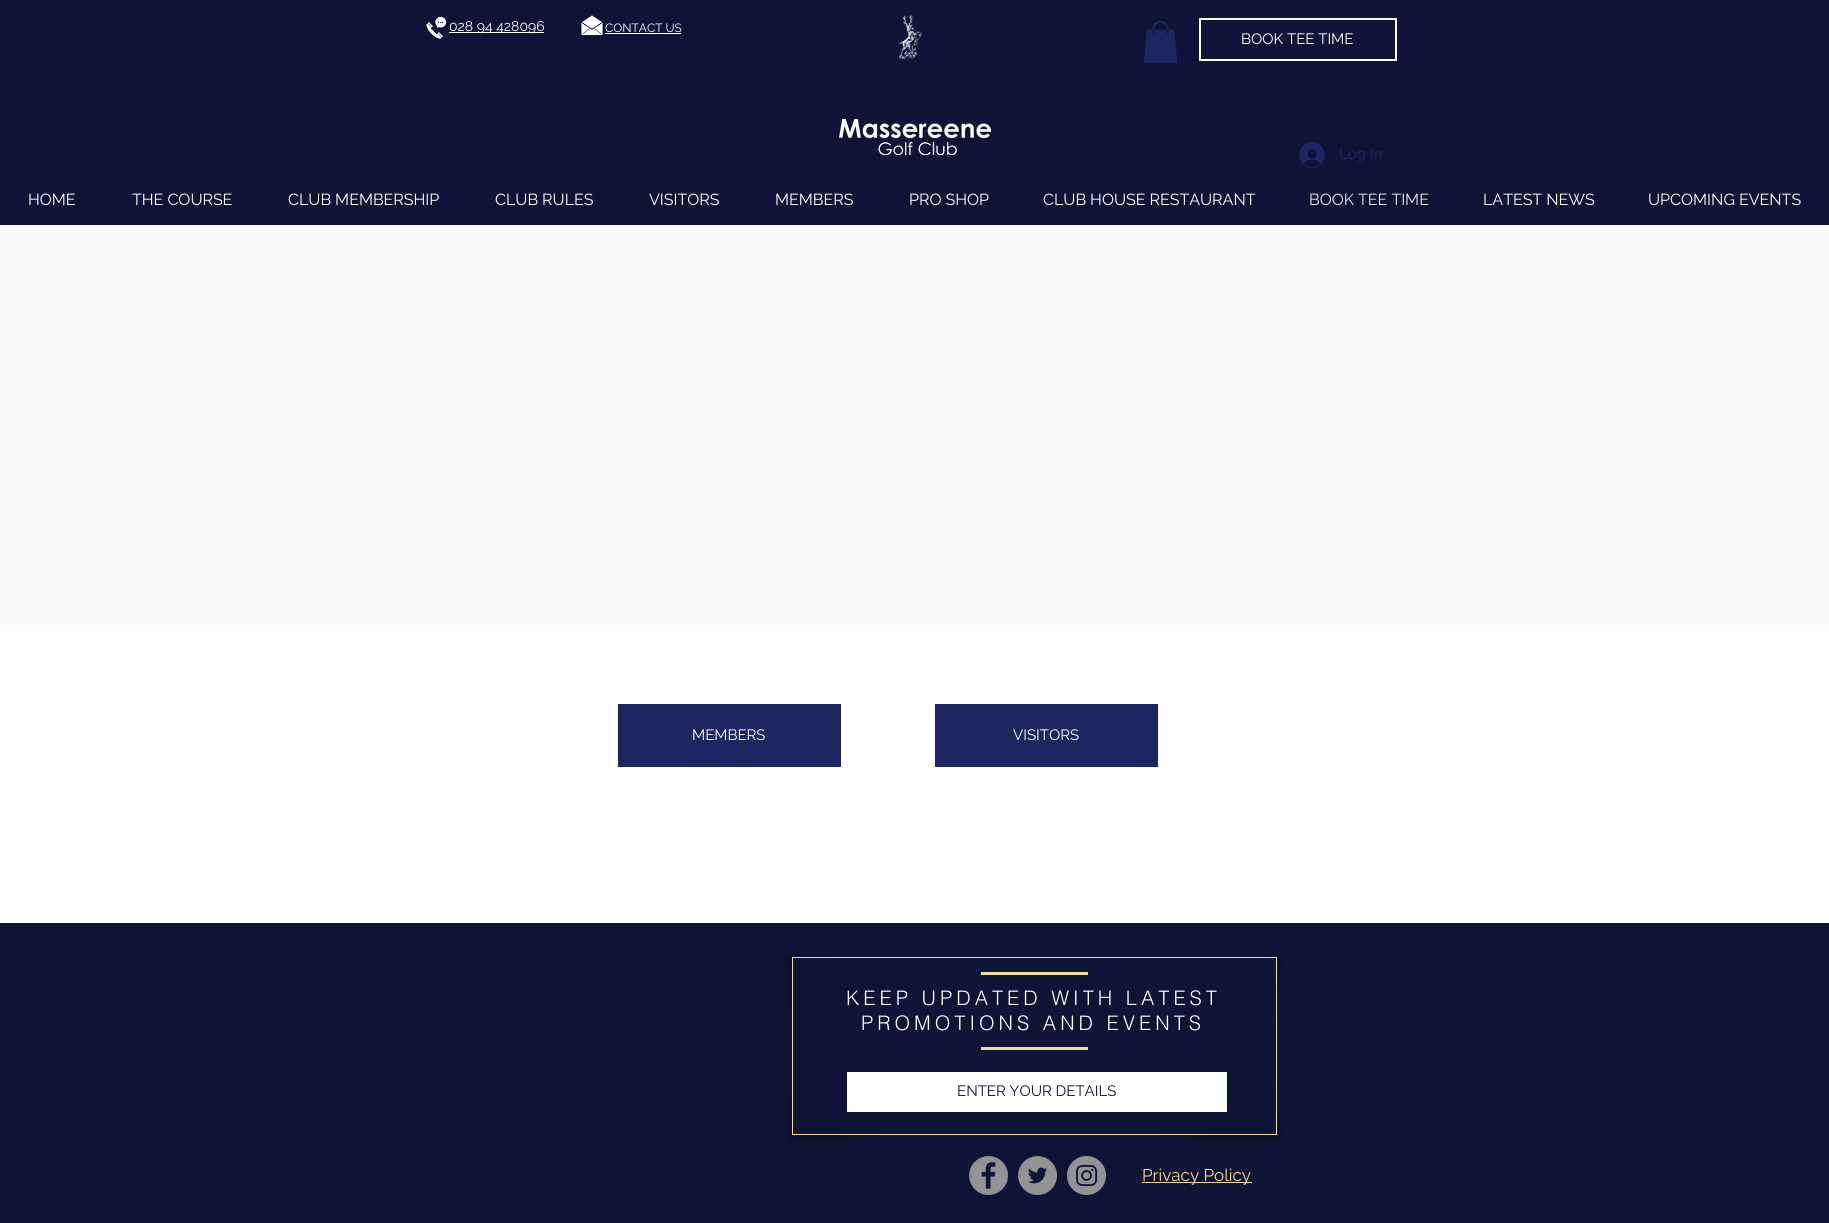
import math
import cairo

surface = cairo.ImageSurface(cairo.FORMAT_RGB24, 1829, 1223)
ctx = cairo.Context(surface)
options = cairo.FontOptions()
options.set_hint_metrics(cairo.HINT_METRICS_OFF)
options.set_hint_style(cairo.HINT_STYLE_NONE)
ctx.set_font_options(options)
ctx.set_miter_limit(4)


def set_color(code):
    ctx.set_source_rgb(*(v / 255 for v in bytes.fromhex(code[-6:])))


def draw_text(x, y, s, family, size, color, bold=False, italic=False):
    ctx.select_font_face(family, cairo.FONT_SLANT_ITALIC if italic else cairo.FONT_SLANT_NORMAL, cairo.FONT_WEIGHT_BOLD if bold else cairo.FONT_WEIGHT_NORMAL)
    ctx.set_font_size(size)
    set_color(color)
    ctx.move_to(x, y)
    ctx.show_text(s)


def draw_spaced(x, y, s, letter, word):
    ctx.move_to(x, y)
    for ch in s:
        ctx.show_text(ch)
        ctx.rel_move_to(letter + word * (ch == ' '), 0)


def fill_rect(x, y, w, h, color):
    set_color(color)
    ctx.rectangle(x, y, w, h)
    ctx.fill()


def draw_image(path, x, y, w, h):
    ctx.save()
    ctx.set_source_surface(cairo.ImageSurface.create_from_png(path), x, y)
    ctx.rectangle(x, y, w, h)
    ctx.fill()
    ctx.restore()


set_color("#ffffff")
ctx.paint()
fill_rect(0, 0, 1829, 225, "#0f1437")
draw_image("assets/img1.png", 425, 16, 22, 24)
fill_rect(449, 32, 95, 1, "#ffffff")
draw_text(449, 31, "028 94 428096", "Raleway", 14, "#ffffff")
draw_image("assets/img2.png", 580, 15, 24, 21)
draw_text(605, 32, "CONTACT US", "Raleway", 12, "#ffffff")
fill_rect(605, 33, 76, 1, "#ffffff")
draw_image("assets/img3.png", 899, 15, 23, 45)
draw_image("assets/img4.png", 1144, 21, 34, 42)
ctx.rectangle(1200, 19, 196, 41)
ctx.stroke()
draw_text(1241, 44, "BOOK TEE TIME", "Raleway", 15, "#ffffff")
draw_image("assets/img5.png", 839, 119, 152, 36)
draw_image("assets/img6.png", 1299, 142, 26, 26)
draw_text(1339, 159, "Log In", "Raleway", 15, "#1e2661")
draw_text(28, 205, "HOME", "Raleway", 16, "#ffffff")
draw_text(132, 205, "THE COURSE", "Raleway", 16, "#ffffff")
draw_text(288, 205, "CLUB MEMBERSHIP", "Raleway", 16, "#ffffff")
draw_text(495, 205, "CLUB RULES", "Raleway", 16, "#ffffff")
draw_text(649, 205, "VISITORS", "Raleway", 16, "#ffffff")
draw_text(775, 205, "MEMBERS", "Raleway", 16, "#ffffff")
draw_text(909, 205, "PRO SHOP", "Raleway", 16, "#ffffff")
draw_text(1043, 205, "CLUB HOUSE RESTAURANT", "Raleway", 16, "#ffffff")
draw_text(1309, 205, "BOOK TEE TIME", "Raleway", 16, "#e8e6e6")
draw_text(1483, 205, "LATEST NEWS", "Raleway", 16, "#ffffff")
draw_text(1648, 205, "UPCOMING EVENTS", "Raleway", 16, "#ffffff")
fill_rect(0, 225, 1829, 402, "#fafafa")
fill_rect(618, 704, 223, 63, "#1e2661")
draw_text(692, 740, "MEMBERS", "Raleway", 15, "#ffffff")
fill_rect(935, 704, 223, 63, "#1e2661")
draw_text(1013, 740, "VISITORS", "Raleway", 15, "#ffffff")
fill_rect(0, 923, 1829, 300, "#0f1437")
draw_image("assets/img7.png", 785, 956, 64, 70)
draw_image("assets/img8.png", 1254, 956, 28, 62)
draw_image("assets/img9.png", 786, 1085, 103, 57)
draw_image("assets/img10.png", 1155, 1080, 127, 62)
ctx.rectangle(792.5, 957.5, 484, 177)
set_color("#f3db8f")
ctx.set_line_width(1)
ctx.stroke()
fill_rect(981, 972, 107, 3, "#f3db8f")
ctx.select_font_face("helvetica Light")
ctx.set_font_size(20)
set_color("#ffffff")
draw_spaced(846, 1005, "KEEP UPDATED WITH LATEST", 4, 0)
draw_spaced(861, 1030, "PROMOTIONS AND EVENTS", 4, 0)
fill_rect(981, 1047, 107, 3, "#f3db8f")
fill_rect(847, 1072, 380, 40, "#ffffff")
draw_text(957, 1096, "ENTER YOUR DETAILS", "Raleway", 15, "#0f1437")
draw_image("assets/img11.png", 969, 1156, 39, 39)
draw_image("assets/img12.png", 1018, 1156, 39, 39)
draw_image("assets/img13.png", 1067, 1156, 39, 39)
fill_rect(1142, 1182, 110, 1, "#f3db8f")
draw_text(1142, 1181, "Privacy Policy", "Raleway", 17, "#f3db8f")
surface.write_to_png("output.png")
